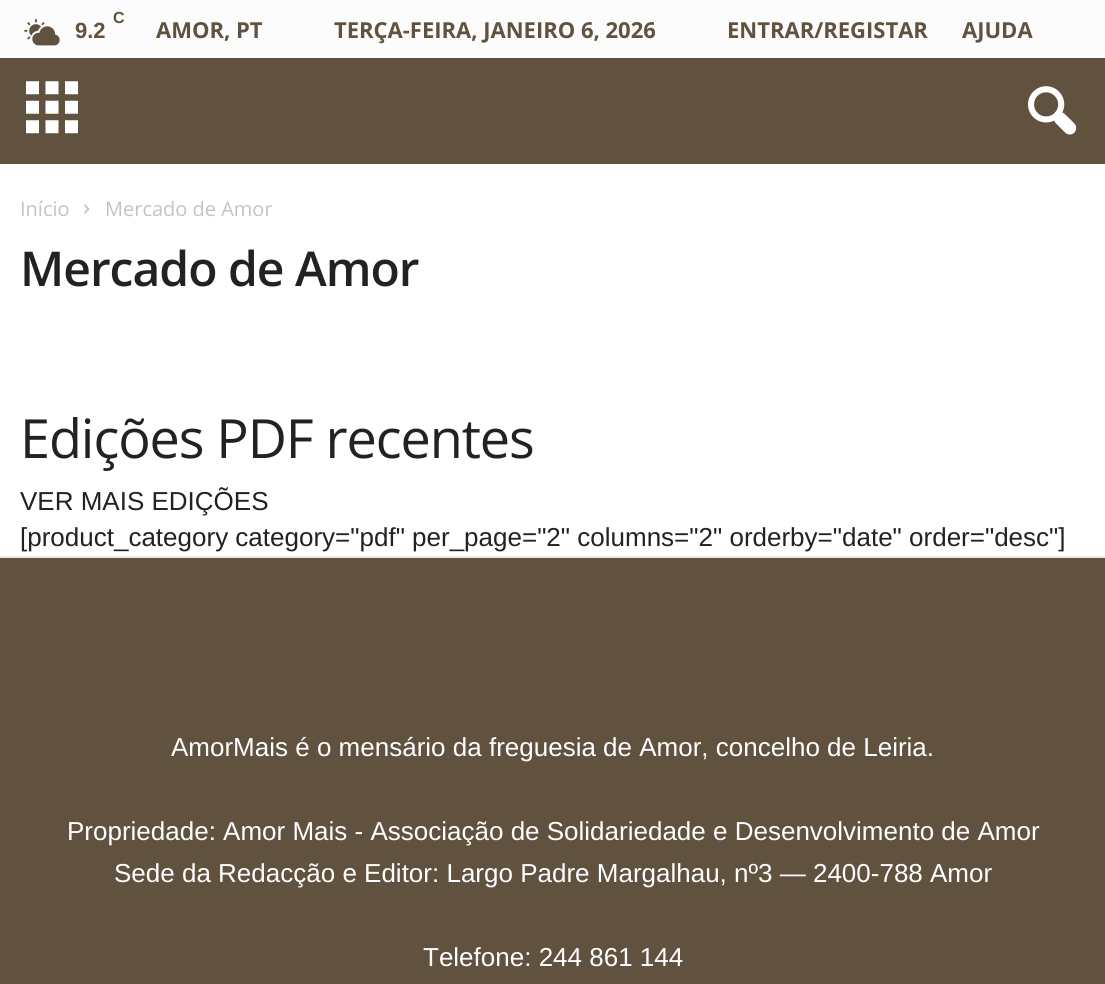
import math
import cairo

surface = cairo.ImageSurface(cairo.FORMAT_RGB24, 1105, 984)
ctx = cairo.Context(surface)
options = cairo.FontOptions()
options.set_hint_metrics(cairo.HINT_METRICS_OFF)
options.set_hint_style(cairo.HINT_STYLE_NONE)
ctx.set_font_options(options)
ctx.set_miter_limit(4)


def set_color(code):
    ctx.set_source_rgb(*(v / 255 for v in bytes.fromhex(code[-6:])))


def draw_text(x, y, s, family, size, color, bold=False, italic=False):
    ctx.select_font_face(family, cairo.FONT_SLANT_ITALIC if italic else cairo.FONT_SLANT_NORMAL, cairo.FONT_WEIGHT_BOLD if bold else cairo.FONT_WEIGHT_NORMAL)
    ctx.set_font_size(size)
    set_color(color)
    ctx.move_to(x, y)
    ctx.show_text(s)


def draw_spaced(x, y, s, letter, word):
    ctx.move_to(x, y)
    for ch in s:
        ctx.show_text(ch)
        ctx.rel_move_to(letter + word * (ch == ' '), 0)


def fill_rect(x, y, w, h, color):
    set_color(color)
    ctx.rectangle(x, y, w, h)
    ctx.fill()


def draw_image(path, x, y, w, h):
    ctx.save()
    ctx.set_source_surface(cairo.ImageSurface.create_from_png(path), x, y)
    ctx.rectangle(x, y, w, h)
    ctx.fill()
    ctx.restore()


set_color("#ffffff")
ctx.paint()
fill_rect(0, 0, 1105, 58, "#fcfcfc")
draw_image("assets/img1.png", 24, 19, 36, 27)
draw_text(113, 23, "C", "Liberation Sans", 16, "#61513f", bold=True)
draw_text(75, 38, "9.2", "Liberation Sans", 22, "#61513f", bold=True)
draw_text(156, 38, "AMOR, PT", "Open Sans", 22, "#61513f", bold=True)
draw_text(334, 38, "TERÇA-FEIRA, JANEIRO 6, 2026", "Open Sans", 22, "#61513f", bold=True)
draw_text(727, 38, "ENTRAR/REGISTAR", "Open Sans", 22, "#61513f", bold=True)
draw_text(962, 38, "AJUDA", "Open Sans", 22, "#61513f", bold=True)
fill_rect(0, 58, 1105, 106, "#61513f")
draw_image("assets/img2.png", 26, 81, 52, 53)
draw_image("assets/img3.png", 1028, 86, 49, 49)
fill_rect(0, 556, 1105, 2, "#e6e6e6")
draw_text(20, 216, "Início", "Open Sans", 20, "#c3c3c3")
draw_image("assets/img4.png", 84, 204, 6, 10)
draw_text(105, 216, "Mercado de Amor", "Open Sans", 20, "#c3c3c3")
ctx.select_font_face("Open Sans SemiBold")
ctx.set_font_size(48)
set_color("#222222")
draw_spaced(20, 286, "Mercado de Amor", -1, 0)
ctx.select_font_face("Open Sans")
ctx.set_font_size(54)
draw_spaced(20, 458, "Edições PDF recentes", -1.1, 0)
draw_text(20, 510, "VER MAIS EDIÇÕES", "Liberation Sans", 26, "#222222")
draw_text(20, 546, "[product_category category=\"pdf\" per_page=\"2\" columns=\"2\" orderby=\"date\" order=\"desc\"]", "Liberation Sans", 26, "#222222")
fill_rect(0, 558, 1105, 426, "#61513f")
draw_text(171, 756, "AmorMais é o mensário da freguesia de Amor, concelho de Leiria.", "Liberation Sans", 26, "#ffffff")
draw_text(67, 840, "Propriedade: Amor Mais - Associação de Solidariedade e Desenvolvimento de Amor", "Liberation Sans", 26, "#ffffff")
draw_text(114, 882, "Sede da Redacção e Editor: Largo Padre Margalhau, nº3 — 2400-788 Amor", "Liberation Sans", 26, "#ffffff")
draw_text(423, 966, "Telefone: 244 861 144", "Liberation Sans", 26, "#ffffff")
surface.write_to_png("output.png")
